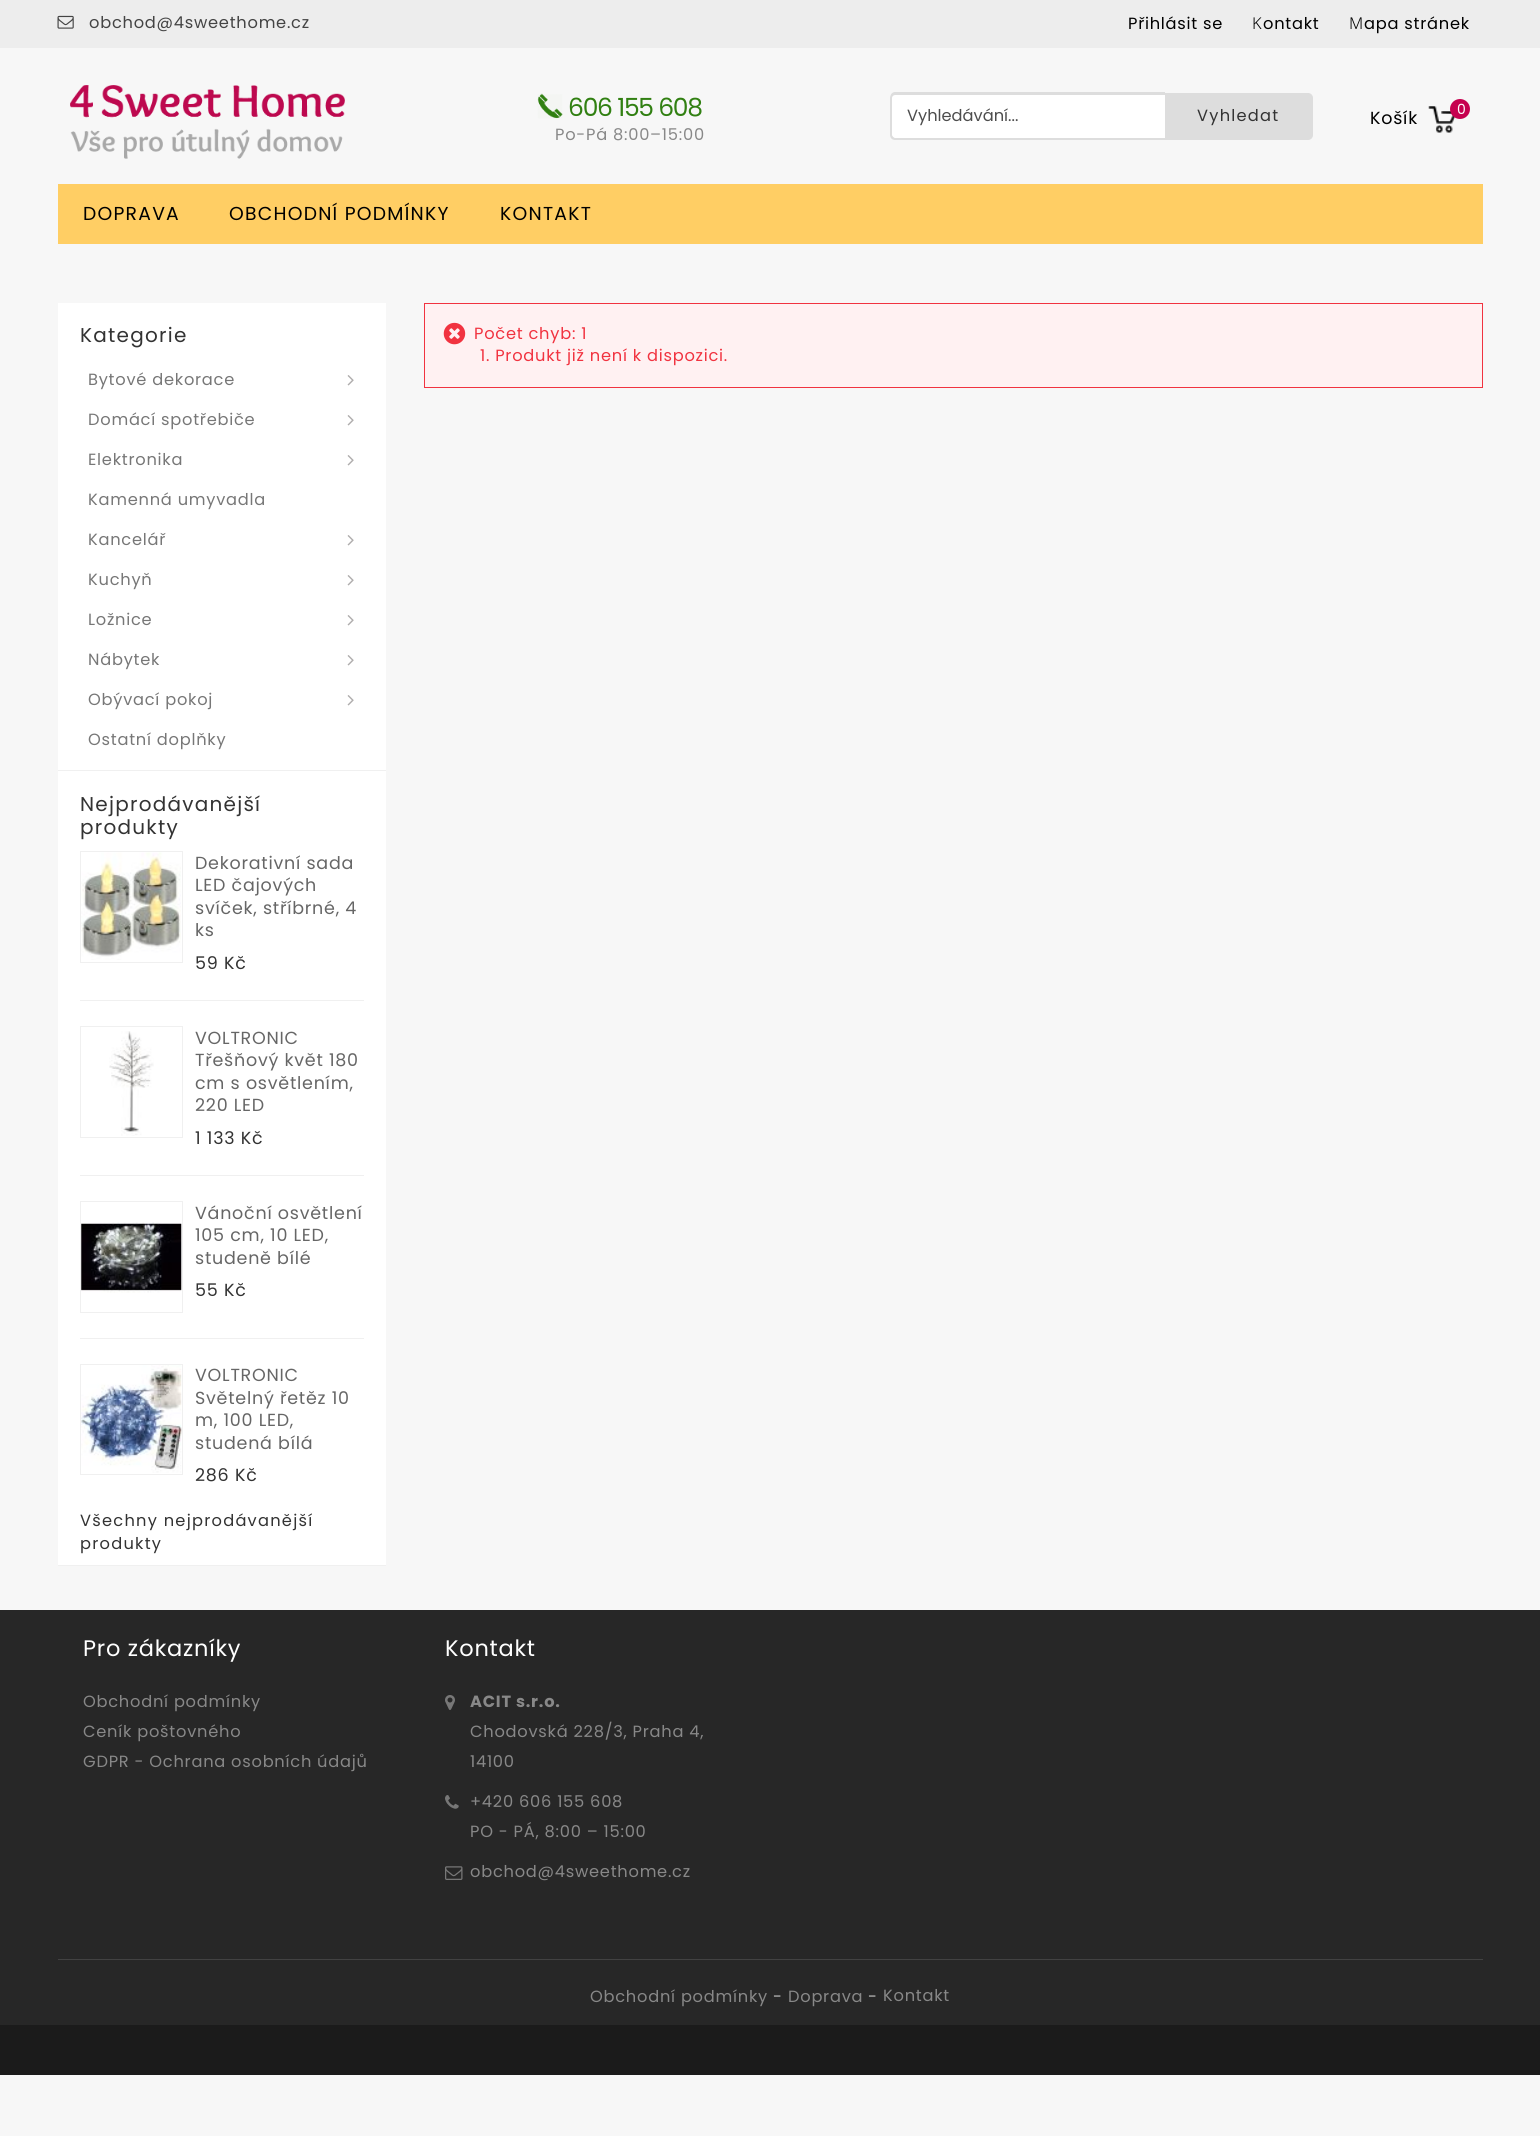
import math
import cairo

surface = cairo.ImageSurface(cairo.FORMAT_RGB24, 1540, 2136)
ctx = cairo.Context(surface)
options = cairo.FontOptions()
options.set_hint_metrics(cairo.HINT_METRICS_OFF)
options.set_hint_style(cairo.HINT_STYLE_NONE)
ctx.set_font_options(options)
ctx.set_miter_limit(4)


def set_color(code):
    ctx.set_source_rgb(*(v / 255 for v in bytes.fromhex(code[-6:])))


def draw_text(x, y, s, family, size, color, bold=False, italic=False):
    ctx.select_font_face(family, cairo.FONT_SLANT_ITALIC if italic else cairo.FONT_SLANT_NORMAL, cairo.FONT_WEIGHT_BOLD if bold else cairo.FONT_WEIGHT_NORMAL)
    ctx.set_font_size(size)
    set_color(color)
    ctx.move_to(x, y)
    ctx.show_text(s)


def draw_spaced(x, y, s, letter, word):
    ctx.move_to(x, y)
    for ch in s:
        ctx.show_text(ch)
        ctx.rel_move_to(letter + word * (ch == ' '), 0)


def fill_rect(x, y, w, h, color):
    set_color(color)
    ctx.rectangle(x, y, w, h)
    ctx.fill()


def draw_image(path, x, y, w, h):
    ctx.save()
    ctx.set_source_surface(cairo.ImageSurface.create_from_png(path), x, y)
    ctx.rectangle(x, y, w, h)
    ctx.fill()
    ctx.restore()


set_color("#f7f7f7")
ctx.paint()
fill_rect(0, 0, 1540, 48, "#ededed")
draw_image("assets/img1.png", 57, 15, 17, 14)
ctx.select_font_face("Poppins")
ctx.set_font_size(16.25)
set_color("#444444")
draw_spaced(89, 28, "obchod@4sweethome.cz", 0.75, 0)
set_color("#000000")
draw_spaced(1128, 29, "Přihlásit se", 0.75, 0)
ctx.select_font_face("Noto Sans Light")
draw_spaced(1252, 29, "K", 0.75, 0)
ctx.select_font_face("Poppins")
draw_spaced(1263, 29, "ontakt", 0.75, 0)
ctx.select_font_face("Noto Sans Light")
draw_spaced(1349, 29, "M", 0.75, 0)
ctx.select_font_face("Poppins")
draw_spaced(1364, 29, "apa stránek", 0.75, 0)
draw_image("assets/img2.png", 70, 85, 275, 74)
draw_image("assets/img3.png", 537, 93, 26, 26)
ctx.set_font_size(25)
set_color("#318012")
draw_spaced(568, 116, "606 155 608", -1.25, 0)
ctx.set_font_size(16.25)
set_color("#888888")
draw_spaced(555, 140, "Po-Pá 8:00–15:00", 0.75, 0)
set_color("#ffffff")
ctx.new_path()
ctx.move_to(895, 93)
ctx.line_to(1165, 93)
ctx.line_to(1165, 140)
ctx.line_to(895, 140)
ctx.curve_to(892, 140, 890, 138, 890, 135)
ctx.line_to(890, 98)
ctx.curve_to(890, 95, 892, 93, 895, 93)
ctx.close_path()
ctx.fill()
set_color("#dddddd")
ctx.set_fill_rule(cairo.FILL_RULE_EVEN_ODD)
ctx.new_path()
ctx.move_to(895, 92)
ctx.line_to(1165, 92)
ctx.line_to(1165, 140)
ctx.line_to(895, 140)
ctx.curve_to(892, 140, 890, 138, 890, 135)
ctx.line_to(890, 98)
ctx.curve_to(890, 95, 892, 92, 895, 92)
ctx.close_path()
ctx.move_to(895, 95)
ctx.line_to(1165, 95)
ctx.line_to(1165, 138)
ctx.line_to(895, 138)
ctx.curve_to(894, 138, 892, 136, 892, 135)
ctx.line_to(892, 98)
ctx.curve_to(892, 96, 894, 95, 895, 95)
ctx.close_path()
ctx.fill()
draw_text(907, 121, "Vyhledávání...", "Poppins", 16.25, "#4d4d4d")
set_color("#dddddd")
ctx.new_path()
ctx.move_to(1165.5, 93.5)
ctx.line_to(1308, 93.5)
ctx.curve_to(1310.5, 93.5, 1312.5, 95.5, 1312.5, 98)
ctx.line_to(1312.5, 135)
ctx.curve_to(1312.5, 137.5, 1310.5, 139.5, 1308, 139.5)
ctx.line_to(1165.5, 139.5)
ctx.close_path()
ctx.fill_preserve()
ctx.set_line_width(1)
ctx.stroke()
set_color("#333333")
draw_spaced(1197, 121, "Vyhledat", 1.25, 0)
ctx.set_font_size(17.5)
set_color("#000000")
draw_spaced(1370, 124, "Košík", 0.75, 0)
draw_image("assets/img4.png", 1428, 106, 28, 27)
set_color("#c6004f")
ctx.arc(1460, 109, 10, 0, 2 * math.pi)
ctx.fill()
ctx.set_font_size(14)
set_color("#ffffff")
draw_spaced(1457, 114, "0", 0.75, 0)
fill_rect(58, 184, 1425, 60, "#ffce64")
ctx.set_font_size(18.75)
set_color("#000000")
draw_spaced(83, 220, "DOPRAVA", 1.25, 0)
draw_spaced(229, 220, "OBCHODNÍ PODMÍNKY", 1.25, 0)
draw_spaced(500, 220, "KONTAKT", 1.25, 0)
fill_rect(58, 303, 328, 467, "#ffffff")
fill_rect(58, 770, 328, 1, "#f0f0f0")
ctx.set_font_size(20)
set_color("#333333")
draw_spaced(80, 342, "Kategorie", 1.25, 0)
ctx.set_font_size(16.25)
set_color("#777777")
draw_spaced(88, 385, "Bytové dekorace", 0.75, 0)
draw_image("assets/img5.png", 347, 375, 7, 11)
draw_spaced(88, 425, "Domácí spotřebiče", 0.75, 0)
draw_image("assets/img5.png", 347, 415, 7, 11)
draw_spaced(88, 465, "Elektronika", 0.75, 0)
draw_image("assets/img5.png", 347, 455, 7, 11)
draw_spaced(88, 505, "Kamenná umyvadla", 0.75, 0)
draw_spaced(88, 545, "Kancelář", 0.75, 0)
draw_image("assets/img5.png", 347, 535, 7, 11)
draw_spaced(88, 585, "Kuchyň", 0.75, 0)
draw_image("assets/img5.png", 347, 575, 7, 11)
draw_spaced(88, 625, "Ložnice", 0.75, 0)
draw_image("assets/img5.png", 347, 615, 7, 11)
draw_spaced(88, 665, "Nábytek", 0.75, 0)
draw_image("assets/img5.png", 347, 655, 7, 11)
draw_spaced(88, 705, "Obývací pokoj", 0.75, 0)
draw_image("assets/img5.png", 347, 695, 7, 11)
draw_spaced(88, 745, "Ostatní doplňky", 0.75, 0)
fill_rect(58, 771, 328, 794, "#ffffff")
fill_rect(58, 1565, 328, 1, "#f0f0f0")
ctx.set_font_size(20)
set_color("#333333")
draw_spaced(80, 811, "Nejprodávanější", 1.25, 0)
draw_spaced(80, 834, "produkty", 1.25, 0)
fill_rect(80, 1000, 284, 1, "#f0f0f0")
ctx.rectangle(80.5, 851.5, 102, 111)
ctx.stroke()
draw_image("assets/img6.png", 81, 852, 100, 108)
ctx.set_font_size(17.5)
set_color("#666666")
draw_spaced(195, 869, "Dekorativní sada", 0.75, 0)
draw_spaced(195, 891, "LED čajových", 0.75, 0)
draw_spaced(195, 914, "svíček, stříbrné, 4", 0.75, 0)
draw_spaced(195, 936, "ks", 0.75, 0)
set_color("#333333")
draw_spaced(195, 969, "59 Kč", 0.75, 0)
fill_rect(80, 1175, 284, 1, "#f0f0f0")
ctx.rectangle(80.5, 1026.5, 102, 111)
ctx.stroke()
draw_image("assets/img7.png", 109, 1031, 45, 105)
set_color("#666666")
draw_spaced(195, 1044, "VOLTRONIC", 0.75, 0)
draw_spaced(195, 1066, "Třešňový květ 180", 0.75, 0)
draw_spaced(195, 1089, "cm s osvětlením,", 0.75, 0)
draw_spaced(195, 1111, "220 LED", 0.75, 0)
set_color("#333333")
draw_spaced(195, 1144, "1 133 Kč", 0.75, 0)
fill_rect(80, 1338, 284, 1, "#f0f0f0")
ctx.rectangle(80.5, 1201.5, 102, 111)
ctx.stroke()
draw_image("assets/img8.png", 81, 1222, 101, 71)
set_color("#666666")
draw_spaced(195, 1219, "Vánoční osvětlení", 0.75, 0)
draw_spaced(195, 1241, "105 cm, 10 LED,", 0.75, 0)
draw_spaced(195, 1264, "studeně bílé", 0.75, 0)
set_color("#333333")
draw_spaced(195, 1296, "55 Kč", 0.75, 0)
ctx.rectangle(80.5, 1364.5, 102, 110)
set_color("#f0f0f0")
ctx.stroke()
draw_image("assets/img9.png", 81, 1365, 101, 108)
set_color("#666666")
draw_spaced(195, 1381, "VOLTRONIC", 0.75, 0)
draw_spaced(195, 1404, "Světelný řetěz 10", 0.75, 0)
draw_spaced(195, 1426, "m, 100 LED,", 0.75, 0)
draw_spaced(195, 1449, "studená bílá", 0.75, 0)
set_color("#333333")
draw_spaced(195, 1481, "286 Kč", 0.75, 0)
ctx.set_font_size(16.25)
draw_spaced(80, 1526, "Všechny nejprodávanější", 1.25, 0)
draw_spaced(80, 1549, "produkty", 1.25, 0)
set_color("#fff1f2")
ctx.rectangle(424.5, 303.5, 1058, 84)
ctx.fill_preserve()
set_color("#f13340")
ctx.stroke()
draw_image("assets/img10.png", 443, 322, 23, 23)
draw_spaced(474, 339, "Počet chyb: 1", 0.75, 0)
draw_spaced(480, 361, "1. Produkt již není k dispozici.", 0.75, 0)
fill_rect(0, 1610, 1540, 415, "#272727")
ctx.set_font_size(22.5)
set_color("#ffffff")
draw_spaced(83, 1656, "Pro zákazníky", 0.75, 0)
ctx.set_font_size(16.25)
set_color("#888888")
draw_spaced(83, 1707, "Obchodní podmínky", 0.75, 0)
draw_spaced(83, 1737, "Ceník poštovného", 0.75, 0)
draw_spaced(83, 1767, "GDPR - Ochrana osobních údajů", 0.75, 0)
ctx.set_font_size(22.5)
set_color("#ffffff")
draw_spaced(445, 1656, "Kontakt", 0.75, 0)
draw_image("assets/img11.png", 445, 1695, 10, 15)
ctx.select_font_face("Poppins", cairo.FONT_SLANT_NORMAL, cairo.FONT_WEIGHT_BOLD)
ctx.set_font_size(16.25)
set_color("#888888")
draw_spaced(470, 1707, "ACIT s.r.o.", 0.75, 0)
ctx.select_font_face("Poppins")
draw_spaced(470, 1737, "Chodovská 228/3, Praha 4,", 0.75, 0)
draw_spaced(470, 1767, "14100", 0.75, 0)
draw_image("assets/img12.png", 445, 1795, 14, 14)
draw_spaced(470, 1807, "+420 606 155 608", 0.75, 0)
draw_spaced(470, 1837, "PO - PÁ, 8:00 – 15:00", 0.75, 0)
draw_image("assets/img13.png", 445, 1866, 18, 14)
draw_spaced(470, 1877, "obchod@4sweethome.cz", 0.75, 0)
fill_rect(58, 1959, 1425, 1, "#424242")
set_color("#888888")
draw_spaced(590, 2002, "Obchodní podmínky", 0.75, 0)
set_color("#b9b9b9")
draw_spaced(773, 2002, "-", 0.75, 0)
set_color("#888888")
draw_spaced(788, 2002, "Doprava", 0.75, 0)
set_color("#b9b9b9")
draw_spaced(868, 2002, "-", 0.75, 0)
set_color("#888888")
draw_spaced(883, 2001, "Kontakt", 0.75, 0)
fill_rect(0, 2025, 1540, 50, "#1b1b1b")
surface.write_to_png("output.png")
